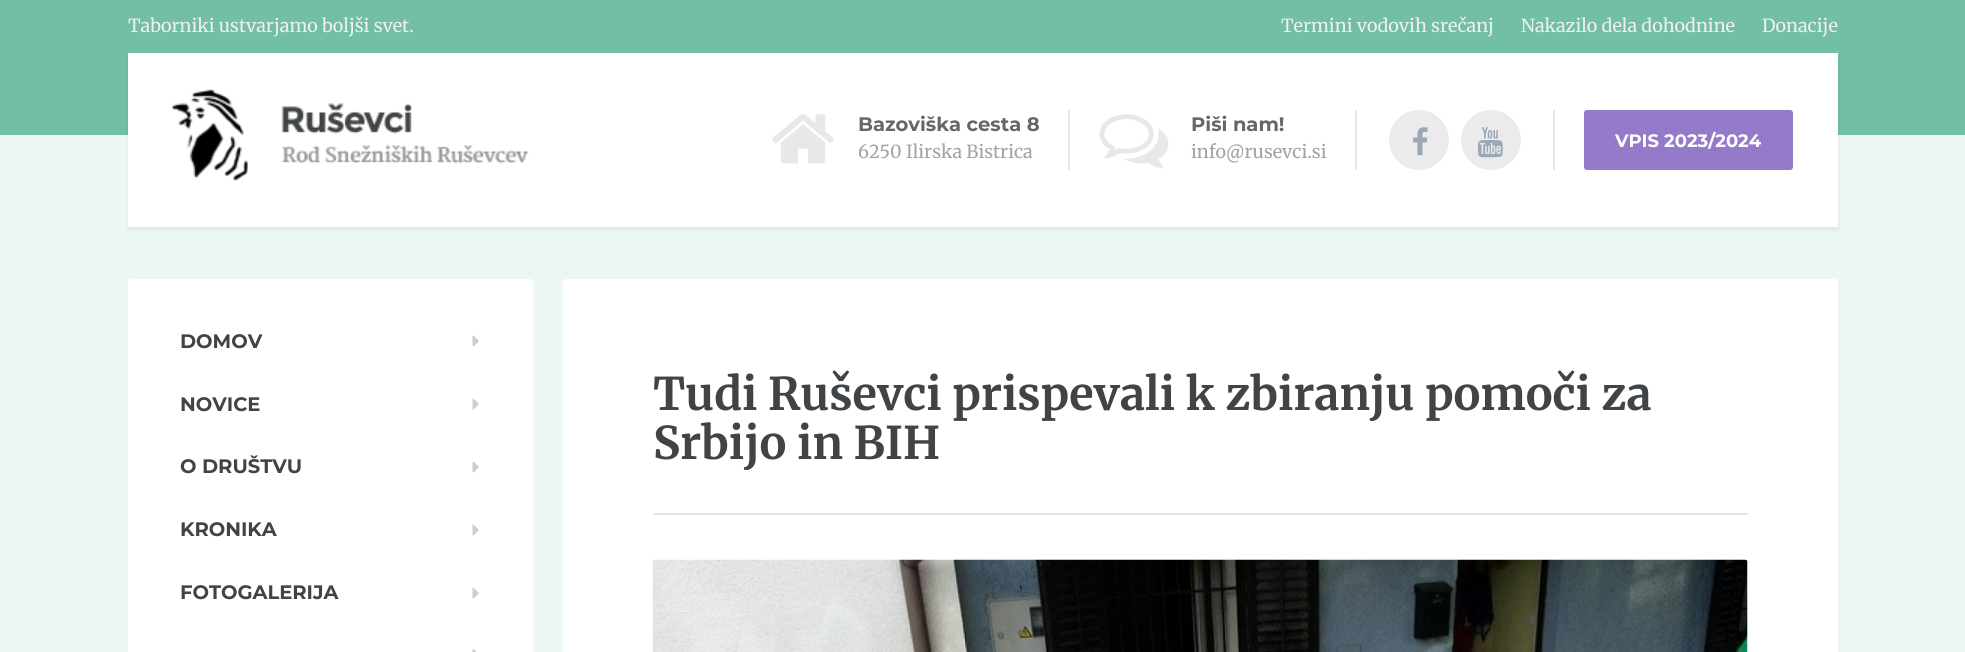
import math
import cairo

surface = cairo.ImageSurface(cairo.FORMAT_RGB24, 1965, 652)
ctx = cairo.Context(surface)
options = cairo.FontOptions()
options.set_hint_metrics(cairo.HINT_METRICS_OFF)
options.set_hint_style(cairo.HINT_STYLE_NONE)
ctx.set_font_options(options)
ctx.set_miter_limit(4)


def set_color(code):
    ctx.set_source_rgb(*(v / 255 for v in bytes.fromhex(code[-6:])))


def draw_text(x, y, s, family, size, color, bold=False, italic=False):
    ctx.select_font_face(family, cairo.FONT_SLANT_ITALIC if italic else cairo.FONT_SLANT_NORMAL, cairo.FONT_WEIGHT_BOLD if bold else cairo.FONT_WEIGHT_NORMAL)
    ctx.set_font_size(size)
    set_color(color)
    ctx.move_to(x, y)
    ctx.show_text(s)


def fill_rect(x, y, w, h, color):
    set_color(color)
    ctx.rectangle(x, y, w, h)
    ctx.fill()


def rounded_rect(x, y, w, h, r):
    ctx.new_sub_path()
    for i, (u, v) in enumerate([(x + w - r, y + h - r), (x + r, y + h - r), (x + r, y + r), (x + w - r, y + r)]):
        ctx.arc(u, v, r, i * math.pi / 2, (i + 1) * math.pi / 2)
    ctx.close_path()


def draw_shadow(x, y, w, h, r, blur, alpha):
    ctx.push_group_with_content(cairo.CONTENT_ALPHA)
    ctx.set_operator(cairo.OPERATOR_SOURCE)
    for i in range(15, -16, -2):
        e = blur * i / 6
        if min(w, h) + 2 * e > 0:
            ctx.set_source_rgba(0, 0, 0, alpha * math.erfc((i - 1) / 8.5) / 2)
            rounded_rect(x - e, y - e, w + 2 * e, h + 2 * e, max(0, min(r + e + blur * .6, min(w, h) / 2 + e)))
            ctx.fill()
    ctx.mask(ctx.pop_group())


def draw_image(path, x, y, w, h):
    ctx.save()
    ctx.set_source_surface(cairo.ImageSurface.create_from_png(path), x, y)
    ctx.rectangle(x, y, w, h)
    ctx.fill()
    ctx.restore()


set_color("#ecf7f4")
ctx.paint()
fill_rect(0, 0, 1965, 135, "#73bfa6")
draw_text(128, 32, "Taborniki ustvarjamo boljši svet.", "Merriweather", 18, "#edeff2")
draw_text(1281, 32, "Termini vodovih srečanj", "Merriweather", 18, "#edeff2")
draw_text(1521, 32, "Nakazilo dela dohodnine", "Merriweather", 18, "#edeff2")
draw_text(1762, 32, "Donacije", "Merriweather", 18, "#edeff2")
set_color("#1f1f1f")
draw_shadow(128, 56, 1710, 174, 0, 2, 0.08)
fill_rect(128, 53, 1710, 174, "#ffffff")
draw_image("assets/img1.png", 172, 89, 357, 92)
draw_image("assets/img2.png", 772, 114, 62, 50)
draw_text(858, 131, "Bazoviška cesta 8", "Montserrat", 19.5, "#666666", bold=True)
draw_text(858, 158, "6250 Ilirska Bistrica", "Merriweather", 18, "#a3a3a3")
fill_rect(1068, 110, 2, 60, "#e6e6e6")
draw_image("assets/img3.png", 1099, 114, 70, 55)
draw_text(1191, 131, "Piši nam!", "Montserrat", 19.5, "#666666", bold=True)
draw_text(1191, 158, "info@rusevci.si", "Merriweather", 18, "#a3a3a3")
fill_rect(1355, 110, 2, 60, "#e6e6e6")
set_color("#ebebed")
ctx.new_path()
ctx.arc(1419, 140, 30, 0, 2 * math.pi)
ctx.fill()
draw_image("assets/img4.png", 1413, 127, 15, 29)
ctx.arc(1491, 140, 30, 0, 2 * math.pi)
ctx.fill()
draw_image("assets/img5.png", 1478, 127, 25, 31)
fill_rect(1553, 110, 2, 60, "#e6e6e6")
set_color("#957aca")
rounded_rect(1585, 111, 207, 58, 2)
ctx.fill_preserve()
ctx.stroke()
draw_text(1615, 147, "VPIS 2023/2024", "Montserrat", 18, "#ffffff", bold=True)
rounded_rect(128, 279, 405, 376, 3)
ctx.fill()
draw_text(180, 348, "DOMOV", "Montserrat", 19.5, "#414447", bold=True)
draw_image("assets/img6.png", 472, 335, 7, 12)
draw_text(180, 411, "NOVICE", "Montserrat", 19.5, "#414447", bold=True)
draw_image("assets/img6.png", 472, 398, 7, 12)
draw_text(180, 473, "O DRUŠTVU", "Montserrat", 19.5, "#414447", bold=True)
draw_image("assets/img6.png", 472, 461, 7, 12)
draw_text(180, 536, "KRONIKA", "Montserrat", 19.5, "#414447", bold=True)
draw_image("assets/img6.png", 472, 524, 7, 12)
draw_text(180, 599, "FOTOGALERIJA", "Montserrat", 19.5, "#414447", bold=True)
draw_image("assets/img6.png", 472, 587, 7, 12)
draw_image("assets/img7.png", 472, 649, 5, 3)
set_color("#ffffff")
rounded_rect(563, 279, 1275, 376, 3)
ctx.fill()
fill_rect(653, 513, 1095, 2, "#e6e6e6")
draw_text(653, 410, "Tudi Ruševci prispevali k zbiranju pomoči za", "Merriweather", 45, "#414447", bold=True)
draw_text(653, 459, "Srbijo in BIH", "Merriweather", 45, "#414447", bold=True)
draw_image("assets/img8.png", 652, 559, 1096, 93)
surface.write_to_png("output.png")
